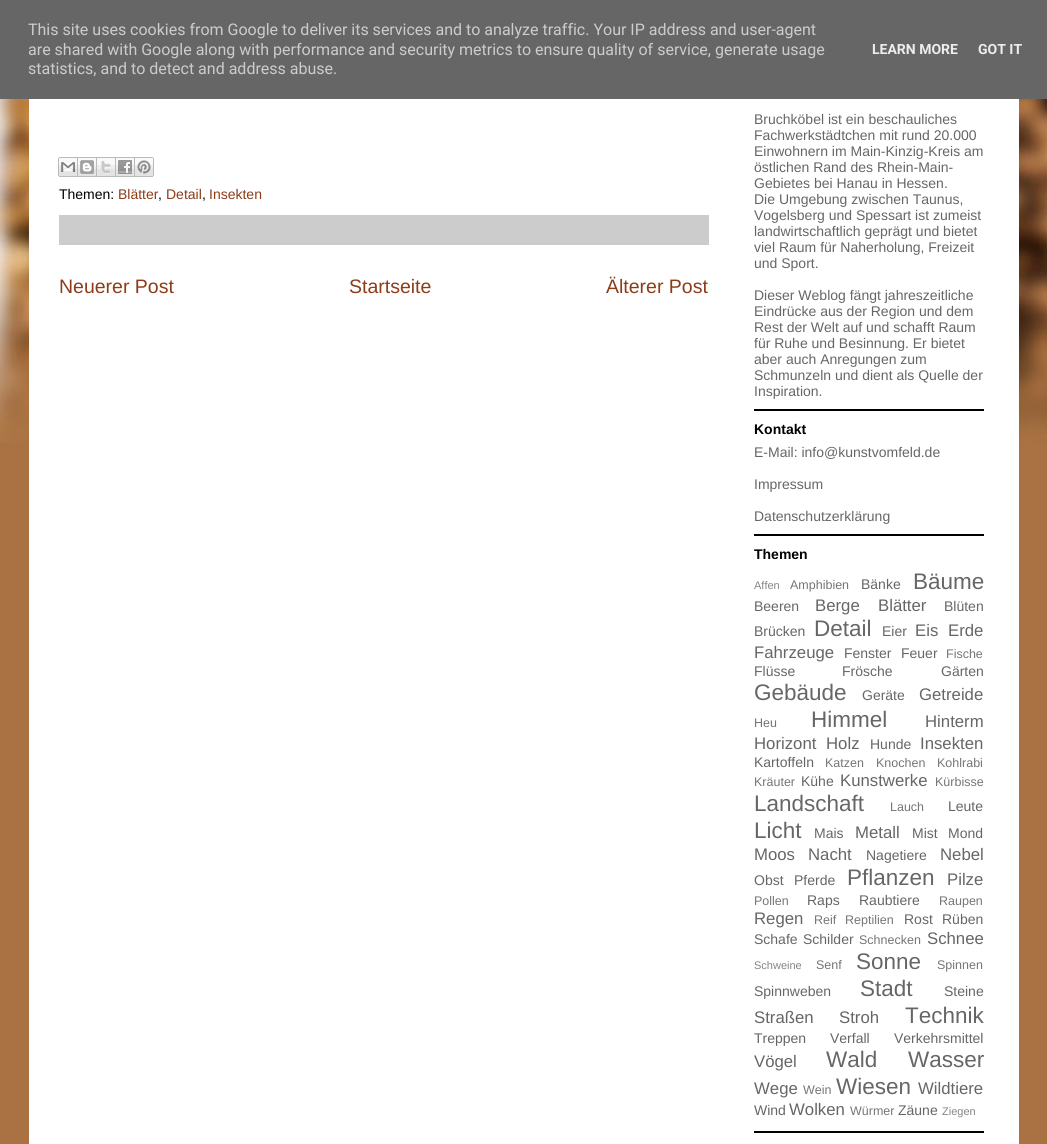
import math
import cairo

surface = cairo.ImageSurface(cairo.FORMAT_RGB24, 1047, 1144)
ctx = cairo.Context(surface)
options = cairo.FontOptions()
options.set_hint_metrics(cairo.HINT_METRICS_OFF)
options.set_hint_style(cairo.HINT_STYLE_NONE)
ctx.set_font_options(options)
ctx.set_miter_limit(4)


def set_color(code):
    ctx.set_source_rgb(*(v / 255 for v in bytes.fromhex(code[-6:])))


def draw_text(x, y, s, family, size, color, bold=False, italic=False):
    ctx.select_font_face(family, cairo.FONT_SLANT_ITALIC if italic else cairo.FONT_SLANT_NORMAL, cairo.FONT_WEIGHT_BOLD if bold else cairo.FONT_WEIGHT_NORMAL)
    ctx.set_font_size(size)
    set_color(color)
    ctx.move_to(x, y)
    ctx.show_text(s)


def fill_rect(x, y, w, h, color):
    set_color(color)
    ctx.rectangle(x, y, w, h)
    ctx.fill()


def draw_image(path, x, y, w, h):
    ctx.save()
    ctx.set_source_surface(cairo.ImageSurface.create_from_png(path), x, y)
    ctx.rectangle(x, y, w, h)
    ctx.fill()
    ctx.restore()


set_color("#aa7243")
ctx.paint()
draw_image("assets/img1.png", 0, 99, 1047, 344)
fill_rect(0, 0, 1047, 99, "#666666")
draw_text(28, 35, "This site uses cookies from Google to deliver its services and to analyze traffic. Your IP address and user-agent", "Roboto", 16, "#cccccc")
draw_text(28, 55, "are shared with Google along with performance and security metrics to ensure quality of service, generate usage", "Roboto", 16, "#cccccc")
draw_text(28, 74, "statistics, and to detect and address abuse.", "Roboto", 16, "#cccccc")
draw_text(872, 54, "LEARN MORE", "Roboto", 14, "#eeeeee", bold=True)
draw_text(978, 54, "GOT IT", "Roboto", 14, "#eeeeee", bold=True)
fill_rect(29, 99, 990, 1045, "#ffffff")
draw_image("assets/img2.png", 58, 157, 20, 20)
draw_image("assets/img3.png", 78, 157, 19, 20)
draw_image("assets/img4.png", 97, 157, 19, 20)
draw_image("assets/img5.png", 116, 157, 19, 20)
draw_image("assets/img6.png", 135, 157, 19, 20)
draw_text(59, 199, "Themen:", "Liberation Sans", 14, "#000000")
draw_text(118, 199, "Blätter", "Liberation Sans", 14, "#8c3c19")
draw_text(158, 199, ",", "Liberation Sans", 14, "#000000")
draw_text(166, 199, "Detail", "Liberation Sans", 14, "#8c3c19")
draw_text(202, 199, ",", "Liberation Sans", 14, "#000000")
draw_text(209, 199, "Insekten", "Liberation Sans", 14, "#8c3c19")
fill_rect(59, 215, 650, 30, "#cccccc")
draw_text(59, 293, "Neuerer Post", "Liberation Sans", 19.5, "#8c3c19")
draw_text(349, 293, "Startseite", "Liberation Sans", 19.5, "#8c3c19")
draw_text(606, 293, "Älterer Post", "Liberation Sans", 19.5, "#8c3c19")
fill_rect(754, 409, 230, 2, "#000000")
draw_text(754, 124, "Bruchköbel ist ein beschauliches", "Liberation Sans", 14, "#666666")
draw_text(754, 140, "Fachwerkstädtchen mit rund 20.000", "Liberation Sans", 14, "#666666")
draw_text(754, 156, "Einwohnern im Main-Kinzig-Kreis am", "Liberation Sans", 14, "#666666")
draw_text(754, 172, "östlichen Rand des Rhein-Main-", "Liberation Sans", 14, "#666666")
draw_text(754, 188, "Gebietes bei Hanau in Hessen.", "Liberation Sans", 14, "#666666")
draw_text(754, 204, "Die Umgebung zwischen Taunus,", "Liberation Sans", 14, "#666666")
draw_text(754, 220, "Vogelsberg und Spessart ist zumeist", "Liberation Sans", 14, "#666666")
draw_text(754, 236, "landwirtschaftlich geprägt und bietet", "Liberation Sans", 14, "#666666")
draw_text(754, 252, "viel Raum für Naherholung, Freizeit", "Liberation Sans", 14, "#666666")
draw_text(754, 268, "und Sport.", "Liberation Sans", 14, "#666666")
draw_text(754, 300, "Dieser Weblog fängt jahreszeitliche", "Liberation Sans", 14, "#666666")
draw_text(754, 316, "Eindrücke aus der Region und dem", "Liberation Sans", 14, "#666666")
draw_text(754, 332, "Rest der Welt auf und schafft Raum", "Liberation Sans", 14, "#666666")
draw_text(754, 348, "für Ruhe und Besinnung. Er bietet", "Liberation Sans", 14, "#666666")
draw_text(754, 364, "aber auch Anregungen zum", "Liberation Sans", 14, "#666666")
draw_text(754, 380, "Schmunzeln und dient als Quelle der", "Liberation Sans", 14, "#666666")
draw_text(754, 396, "Inspiration.", "Liberation Sans", 14, "#666666")
fill_rect(754, 534, 230, 2, "#000000")
draw_text(754, 434, "Kontakt", "Liberation Sans", 14, "#000000", bold=True)
draw_text(754, 457, "E-Mail: info@kunstvomfeld.de", "Liberation Sans", 14, "#666666")
draw_text(754, 489, "Impressum", "Liberation Sans", 14, "#666666")
draw_text(754, 521, "Datenschutzerklärung", "Liberation Sans", 14, "#666666")
fill_rect(754, 1131, 230, 2, "#000000")
draw_text(754, 559, "Themen", "Liberation Sans", 14, "#000000", bold=True)
draw_text(754, 589, "Affen", "Liberation Sans", 11, "#858585")
draw_text(790, 589, "Amphibien", "Liberation Sans", 12.5, "#757575")
draw_text(861, 589, "Bänke", "Liberation Sans", 14, "#666666")
draw_text(913, 589, "Bäume", "Liberation Sans", 22.5, "#666666")
draw_text(754, 611, "Beeren", "Liberation Sans", 14, "#666666")
draw_text(815, 611, "Berge", "Liberation Sans", 16.75, "#666666")
draw_text(878, 611, "Blätter", "Liberation Sans", 16.75, "#666666")
draw_text(944, 611, "Blüten", "Liberation Sans", 14, "#666666")
draw_text(754, 636, "Brücken", "Liberation Sans", 14, "#666666")
draw_text(814, 636, "Detail", "Liberation Sans", 22.5, "#666666")
draw_text(882, 636, "Eier", "Liberation Sans", 14, "#666666")
draw_text(915, 636, "Eis", "Liberation Sans", 16.75, "#666666")
draw_text(948, 636, "Erde", "Liberation Sans", 16.75, "#666666")
draw_text(754, 658, "Fahrzeuge", "Liberation Sans", 16.75, "#666666")
draw_text(844, 658, "Fenster", "Liberation Sans", 14, "#666666")
draw_text(901, 658, "Feuer", "Liberation Sans", 14, "#666666")
draw_text(946, 658, "Fische", "Liberation Sans", 12.5, "#757575")
draw_text(754, 676, "Flüsse", "Liberation Sans", 14, "#666666")
draw_text(842, 676, "Frösche", "Liberation Sans", 14, "#666666")
draw_text(941, 676, "Gärten", "Liberation Sans", 14, "#666666")
draw_text(754, 700, "Gebäude", "Liberation Sans", 22.5, "#666666")
draw_text(862, 700, "Geräte", "Liberation Sans", 14, "#666666")
draw_text(919, 700, "Getreide", "Liberation Sans", 16.75, "#666666")
draw_text(754, 727, "Heu", "Liberation Sans", 12.5, "#757575")
draw_text(811, 727, "Himmel", "Liberation Sans", 22.5, "#666666")
draw_text(925, 727, "Hinterm", "Liberation Sans", 16.75, "#666666")
draw_text(754, 749, "Horizont", "Liberation Sans", 16.75, "#666666")
draw_text(826, 749, "Holz", "Liberation Sans", 16.75, "#666666")
draw_text(870, 749, "Hunde", "Liberation Sans", 14, "#666666")
draw_text(920, 749, "Insekten", "Liberation Sans", 16.75, "#666666")
draw_text(754, 767, "Kartoffeln", "Liberation Sans", 14, "#666666")
draw_text(825, 767, "Katzen", "Liberation Sans", 12.5, "#757575")
draw_text(876, 767, "Knochen", "Liberation Sans", 12.5, "#757575")
draw_text(937, 767, "Kohlrabi", "Liberation Sans", 12.5, "#757575")
draw_text(754, 786, "Kräuter", "Liberation Sans", 12.5, "#757575")
draw_text(801, 786, "Kühe", "Liberation Sans", 14, "#666666")
draw_text(840, 786, "Kunstwerke", "Liberation Sans", 16.75, "#666666")
draw_text(935, 786, "Kürbisse", "Liberation Sans", 12.5, "#757575")
draw_text(754, 811, "Landschaft", "Liberation Sans", 22.5, "#666666")
draw_text(890, 811, "Lauch", "Liberation Sans", 12.5, "#757575")
draw_text(948, 811, "Leute", "Liberation Sans", 14, "#666666")
draw_text(754, 838, "Licht", "Liberation Sans", 22.5, "#666666")
draw_text(814, 838, "Mais", "Liberation Sans", 14, "#666666")
draw_text(855, 838, "Metall", "Liberation Sans", 16.75, "#666666")
draw_text(912, 838, "Mist", "Liberation Sans", 14, "#666666")
draw_text(948, 838, "Mond", "Liberation Sans", 14, "#666666")
draw_text(754, 860, "Moos", "Liberation Sans", 16.75, "#666666")
draw_text(808, 860, "Nacht", "Liberation Sans", 16.75, "#666666")
draw_text(866, 860, "Nagetiere", "Liberation Sans", 14, "#666666")
draw_text(940, 860, "Nebel", "Liberation Sans", 16.75, "#666666")
draw_text(754, 885, "Obst", "Liberation Sans", 14, "#666666")
draw_text(794, 885, "Pferde", "Liberation Sans", 14, "#666666")
draw_text(847, 885, "Pflanzen", "Liberation Sans", 22.5, "#666666")
draw_text(947, 885, "Pilze", "Liberation Sans", 16.75, "#666666")
draw_text(754, 905, "Pollen", "Liberation Sans", 12.5, "#757575")
draw_text(807, 905, "Raps", "Liberation Sans", 14, "#666666")
draw_text(859, 905, "Raubtiere", "Liberation Sans", 14, "#666666")
draw_text(939, 905, "Raupen", "Liberation Sans", 12.5, "#757575")
draw_text(754, 924, "Regen", "Liberation Sans", 16.75, "#666666")
draw_text(814, 924, "Reif", "Liberation Sans", 12.5, "#757575")
draw_text(845, 924, "Reptilien", "Liberation Sans", 12.5, "#757575")
draw_text(904, 924, "Rost", "Liberation Sans", 14, "#666666")
draw_text(942, 924, "Rüben", "Liberation Sans", 14, "#666666")
draw_text(754, 944, "Schafe", "Liberation Sans", 14, "#666666")
draw_text(803, 944, "Schilder", "Liberation Sans", 14, "#666666")
draw_text(859, 944, "Schnecken", "Liberation Sans", 12.5, "#757575")
draw_text(927, 944, "Schnee", "Liberation Sans", 16.75, "#666666")
draw_text(754, 969, "Schweine", "Liberation Sans", 11, "#858585")
draw_text(816, 969, "Senf", "Liberation Sans", 12.5, "#757575")
draw_text(856, 969, "Sonne", "Liberation Sans", 22.5, "#666666")
draw_text(937, 969, "Spinnen", "Liberation Sans", 12.5, "#757575")
draw_text(754, 996, "Spinnweben", "Liberation Sans", 14, "#666666")
draw_text(860, 996, "Stadt", "Liberation Sans", 22.5, "#666666")
draw_text(944, 996, "Steine", "Liberation Sans", 14, "#666666")
draw_text(754, 1023, "Straßen", "Liberation Sans", 16.75, "#666666")
draw_text(839, 1023, "Stroh", "Liberation Sans", 16.75, "#666666")
draw_text(905, 1023, "Technik", "Liberation Sans", 22.5, "#666666")
draw_text(754, 1043, "Treppen", "Liberation Sans", 14, "#666666")
draw_text(830, 1043, "Verfall", "Liberation Sans", 14, "#666666")
draw_text(894, 1043, "Verkehrsmittel", "Liberation Sans", 14, "#666666")
draw_text(754, 1067, "Vögel", "Liberation Sans", 16.75, "#666666")
draw_text(826, 1067, "Wald", "Liberation Sans", 22.5, "#666666")
draw_text(908, 1067, "Wasser", "Liberation Sans", 22.5, "#666666")
draw_text(754, 1094, "Wege", "Liberation Sans", 16.75, "#666666")
draw_text(803, 1094, "Wein", "Liberation Sans", 12.5, "#757575")
draw_text(836, 1094, "Wiesen", "Liberation Sans", 22.5, "#666666")
draw_text(918, 1094, "Wildtiere", "Liberation Sans", 16.75, "#666666")
draw_text(754, 1115, "Wind", "Liberation Sans", 14, "#666666")
draw_text(789, 1115, "Wolken", "Liberation Sans", 16.75, "#666666")
draw_text(850, 1115, "Würmer", "Liberation Sans", 12.5, "#757575")
draw_text(898, 1115, "Zäune", "Liberation Sans", 14, "#666666")
draw_text(942, 1115, "Ziegen", "Liberation Sans", 11, "#858585")
surface.write_to_png("output.png")
